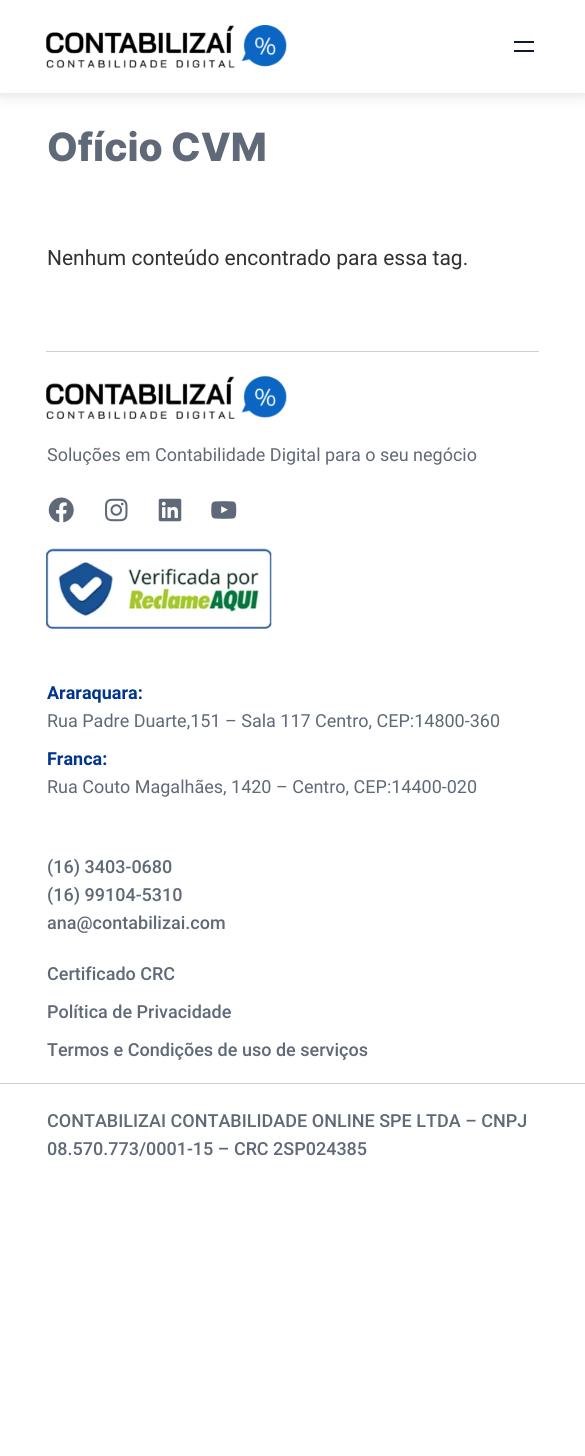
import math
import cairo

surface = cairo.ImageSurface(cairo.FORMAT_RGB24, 585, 1456)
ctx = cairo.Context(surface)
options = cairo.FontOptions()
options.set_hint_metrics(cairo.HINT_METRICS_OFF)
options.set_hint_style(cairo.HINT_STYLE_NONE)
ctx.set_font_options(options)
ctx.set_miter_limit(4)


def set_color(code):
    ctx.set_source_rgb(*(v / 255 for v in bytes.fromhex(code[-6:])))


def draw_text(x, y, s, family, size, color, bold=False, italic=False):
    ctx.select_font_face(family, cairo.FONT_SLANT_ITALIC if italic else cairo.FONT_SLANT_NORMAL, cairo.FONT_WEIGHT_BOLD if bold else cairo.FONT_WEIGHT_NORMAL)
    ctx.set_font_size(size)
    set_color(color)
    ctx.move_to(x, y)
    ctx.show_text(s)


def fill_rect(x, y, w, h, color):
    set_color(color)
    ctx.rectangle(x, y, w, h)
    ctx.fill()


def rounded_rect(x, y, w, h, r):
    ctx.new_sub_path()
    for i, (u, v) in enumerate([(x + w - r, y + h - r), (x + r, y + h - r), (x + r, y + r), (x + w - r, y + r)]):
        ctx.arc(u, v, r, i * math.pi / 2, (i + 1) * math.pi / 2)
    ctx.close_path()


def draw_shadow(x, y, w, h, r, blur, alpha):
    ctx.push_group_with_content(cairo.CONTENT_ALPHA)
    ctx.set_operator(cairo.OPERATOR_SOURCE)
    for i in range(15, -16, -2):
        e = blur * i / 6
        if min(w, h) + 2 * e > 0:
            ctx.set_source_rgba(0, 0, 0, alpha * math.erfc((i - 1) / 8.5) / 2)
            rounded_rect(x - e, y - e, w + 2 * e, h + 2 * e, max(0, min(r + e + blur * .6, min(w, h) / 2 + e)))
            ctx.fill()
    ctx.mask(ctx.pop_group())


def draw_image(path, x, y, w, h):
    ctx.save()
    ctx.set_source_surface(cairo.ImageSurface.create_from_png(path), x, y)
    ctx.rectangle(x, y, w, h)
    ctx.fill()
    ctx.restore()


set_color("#ffffff")
ctx.paint()
ctx.save()
ctx.set_fill_rule(cairo.FILL_RULE_EVEN_ODD)
ctx.new_path()
ctx.move_to(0, 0)
ctx.line_to(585, 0)
ctx.line_to(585, 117)
ctx.line_to(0, 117)
ctx.close_path()
ctx.move_to(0, 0)
ctx.line_to(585, 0)
ctx.line_to(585, 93)
ctx.line_to(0, 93)
ctx.close_path()
ctx.clip()
set_color("#797979")
draw_shadow(0, 0, 585, 93, 0, 7.5, 0.3)
ctx.restore()
draw_image("assets/img1.png", 46, 25, 241, 43)
fill_rect(514, 41, 20, 2, "#0d1a2f")
fill_rect(514, 50, 20, 2, "#0d1a2f")
draw_text(47, 161, "Ofício CVM", "Inter ExtraBold", 39, "#606977")
draw_text(47, 265, "Nenhum conteúdo encontrado para essa tag.", "Roboto", 21, "#313131")
fill_rect(46, 351, 493, 1, "#cacfd8")
draw_image("assets/img2.png", 46, 376, 241, 43)
draw_text(47, 461, "Soluções em Contabilidade Digital para o seu negócio", "Roboto", 18, "#606977")
draw_image("assets/img3.png", 48, 497, 26, 26)
draw_image("assets/img4.png", 105, 498, 23, 24)
draw_image("assets/img5.png", 158, 498, 24, 24)
draw_image("assets/img6.png", 211, 501, 26, 18)
draw_image("assets/img7.png", 46, 548, 226, 81)
draw_text(47, 699, "Araraquara:", "Roboto", 18, "#01358d", bold=True)
draw_text(47, 727, "Rua Padre Duarte,151 – Sala 117 Centro, CEP:14800-360", "Roboto", 18, "#606977")
draw_text(47, 765, "Franca:", "Roboto", 18, "#01358d", bold=True)
draw_text(47, 793, "Rua Couto Magalhães, 1420 – Centro, CEP:14400-020", "Roboto", 18, "#606977")
draw_text(47, 873, "(16) 3403-0680", "Roboto Medium", 18, "#606977")
draw_text(47, 901, "(16) 99104-5310", "Roboto Medium", 18, "#606977")
draw_text(47, 929, "ana@contabilizai.com", "Roboto Medium", 18, "#606977")
draw_text(47, 980, "Certificado CRC", "Roboto Medium", 18, "#606977")
draw_text(47, 1018, "Política de Privacidade", "Roboto Medium", 18, "#606977")
draw_text(47, 1056, "Termos e Condições de uso de serviços", "Roboto Medium", 18, "#606977")
fill_rect(0, 1083, 585, 1, "#cacfd8")
draw_text(47, 1127, "CONTABILIZAI CONTABILIDADE ONLINE SPE LTDA – CNPJ", "Roboto Medium", 18, "#606977")
draw_text(47, 1155, "08.570.773/0001-15 – CRC 2SP024385", "Roboto Medium", 18, "#606977")
surface.write_to_png("output.png")
